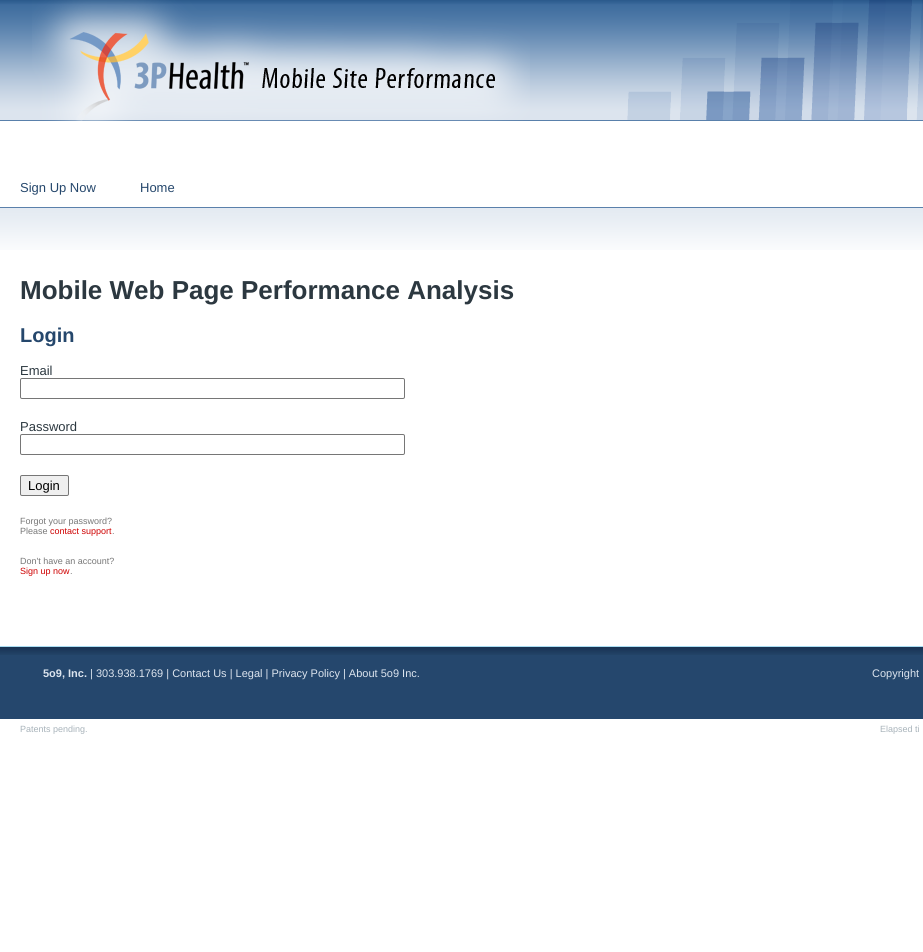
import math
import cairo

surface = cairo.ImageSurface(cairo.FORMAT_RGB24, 923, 952)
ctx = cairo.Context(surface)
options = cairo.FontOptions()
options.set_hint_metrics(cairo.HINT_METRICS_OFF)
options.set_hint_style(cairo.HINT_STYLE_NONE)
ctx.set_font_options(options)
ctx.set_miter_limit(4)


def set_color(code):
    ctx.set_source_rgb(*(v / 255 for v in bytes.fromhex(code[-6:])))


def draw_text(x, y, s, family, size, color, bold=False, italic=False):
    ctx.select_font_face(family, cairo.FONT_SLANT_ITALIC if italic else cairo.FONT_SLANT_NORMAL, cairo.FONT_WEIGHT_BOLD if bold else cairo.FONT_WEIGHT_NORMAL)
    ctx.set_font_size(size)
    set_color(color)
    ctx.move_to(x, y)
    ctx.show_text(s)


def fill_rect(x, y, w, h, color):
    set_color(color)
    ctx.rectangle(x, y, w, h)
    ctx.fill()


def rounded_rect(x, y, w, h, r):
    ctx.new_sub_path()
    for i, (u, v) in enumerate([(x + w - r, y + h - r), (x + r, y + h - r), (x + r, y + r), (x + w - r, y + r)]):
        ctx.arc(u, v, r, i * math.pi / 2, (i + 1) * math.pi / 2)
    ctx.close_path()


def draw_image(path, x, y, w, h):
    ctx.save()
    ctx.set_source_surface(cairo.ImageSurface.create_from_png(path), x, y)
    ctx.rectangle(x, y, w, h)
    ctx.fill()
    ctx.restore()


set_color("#ffffff")
ctx.paint()
draw_image("assets/img1.png", 0, 0, 922, 120)
fill_rect(0, 120, 923, 1, "#5980ab")
draw_image("assets/img2.png", 32, 0, 498, 121)
draw_image("assets/img3.png", 627, 0, 296, 120)
fill_rect(0, 207, 923, 1, "#5a80ab")
draw_text(20, 192, "Sign Up Now", "Liberation Sans", 13, "#25476c")
draw_text(140, 192, "Home", "Liberation Sans", 13, "#25476c")
draw_image("assets/img4.png", 0, 208, 923, 42)
draw_text(20, 299, "Mobile Web Page Performance Analysis", "Liberation Sans", 26, "#2c3840", bold=True)
draw_text(20, 342, "Login", "Liberation Sans", 20, "#25476c", bold=True)
draw_text(20, 375, "Email", "Liberation Sans", 13, "#2c3840")
rounded_rect(20.5, 378.5, 384, 20, 1.5)
set_color("#767676")
ctx.set_line_width(1)
ctx.stroke()
draw_text(20, 431, "Password", "Liberation Sans", 13, "#2c3840")
rounded_rect(20.5, 434.5, 384, 20, 1.5)
set_color("#767676")
ctx.stroke()
set_color("#efefef")
rounded_rect(20.5, 475.5, 48, 20, 1.5)
ctx.fill_preserve()
set_color("#767676")
ctx.stroke()
draw_text(28, 490, "Login", "Liberation Sans", 13, "#000000")
draw_text(20, 524, "Forgot your password?", "Liberation Sans", 9, "#777777")
draw_text(20, 534, "Please", "Liberation Sans", 9, "#777777")
draw_text(50, 534, "contact support", "Liberation Sans", 9, "#ce0000")
draw_text(112, 534, ".", "Liberation Sans", 9, "#777777")
draw_text(20, 564, "Don't have an account?", "Liberation Sans", 9, "#777777")
draw_text(20, 574, "Sign up now", "Liberation Sans", 9, "#ce0000")
draw_text(70, 574, ".", "Liberation Sans", 9, "#777777")
fill_rect(0, 655, 923, 64, "#25476d")
draw_image("assets/img5.png", 0, 647, 923, 8)
fill_rect(0, 646, 923, 1, "#aaddf2")
draw_text(43, 677, "5o9, Inc.", "Liberation Sans", 11, "#dce4ee", bold=True)
draw_text(90, 677, "| 303.938.1769 | Contact Us | Legal | Privacy Policy | About 5o9 Inc.", "Liberation Sans", 11, "#dce4ee")
draw_text(872, 677, "Copyright", "Liberation Sans", 11, "#dce4ee")
draw_text(20, 732, "Patents pending.", "Liberation Sans", 9, "#a8b3ba")
draw_text(880, 732, "Elapsed ti", "Liberation Sans", 9, "#a8b3ba")
surface.write_to_png("output.png")
